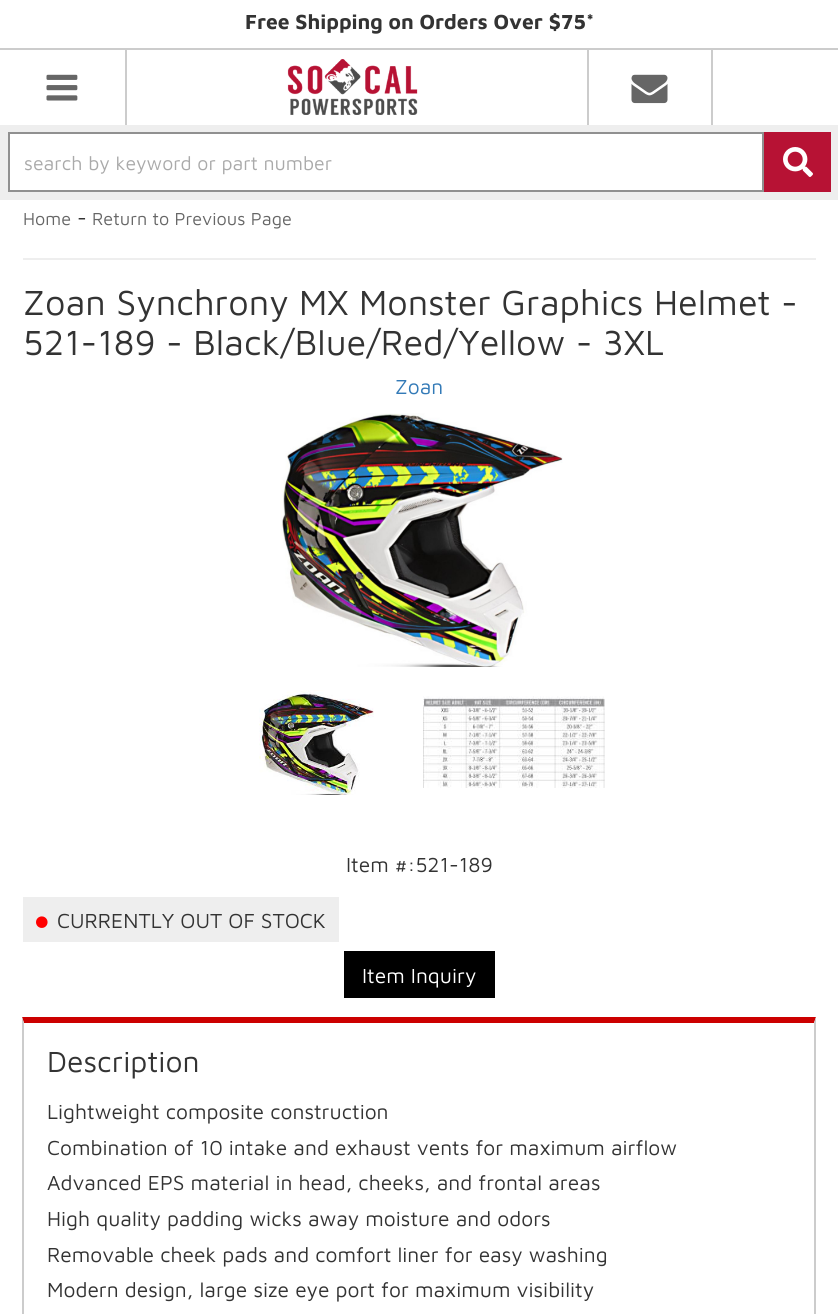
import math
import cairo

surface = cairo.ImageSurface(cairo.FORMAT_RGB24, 838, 1314)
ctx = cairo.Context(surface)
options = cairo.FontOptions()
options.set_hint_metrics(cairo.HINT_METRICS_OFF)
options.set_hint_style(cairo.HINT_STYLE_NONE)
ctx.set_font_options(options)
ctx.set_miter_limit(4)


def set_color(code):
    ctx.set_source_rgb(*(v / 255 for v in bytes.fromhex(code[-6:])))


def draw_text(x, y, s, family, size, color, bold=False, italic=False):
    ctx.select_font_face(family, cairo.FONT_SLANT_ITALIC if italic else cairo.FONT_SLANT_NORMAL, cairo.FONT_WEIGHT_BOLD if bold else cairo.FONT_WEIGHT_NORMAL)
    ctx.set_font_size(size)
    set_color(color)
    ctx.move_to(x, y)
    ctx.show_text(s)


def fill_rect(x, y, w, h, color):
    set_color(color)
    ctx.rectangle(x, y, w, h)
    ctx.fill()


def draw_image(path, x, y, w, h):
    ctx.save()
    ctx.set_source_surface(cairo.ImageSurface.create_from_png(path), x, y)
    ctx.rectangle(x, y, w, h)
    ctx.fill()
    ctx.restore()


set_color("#ffffff")
ctx.paint()
fill_rect(0, 48, 838, 2, "#cccccc")
draw_text(245, 29, "Free Shipping on Orders Over $75*", "Maven Pro", 21, "#333333", bold=True)
fill_rect(125, 50, 2, 75, "#cccccc")
draw_image("assets/img1.png", 46, 74, 32, 27)
draw_image("assets/img2.png", 287, 59, 131, 56)
fill_rect(711, 50, 2, 75, "#cccccc")
fill_rect(587, 50, 2, 75, "#cccccc")
draw_image("assets/img3.png", 631, 74, 37, 30)
fill_rect(0, 125, 838, 75, "#eeeeee")
set_color("#ffffff")
ctx.rectangle(9, 133, 754, 58)
ctx.fill_preserve()
set_color("#909090")
ctx.stroke()
draw_text(24, 170, "search by keyword or part number", "Maven Pro", 19.5, "#aaaaaa")
fill_rect(764, 132, 67, 60, "#b71234")
draw_image("assets/img4.png", 783, 147, 30, 30)
draw_text(23, 225, "Home", "Maven Pro", 18, "#666666")
draw_text(77, 225, "-", "Maven Pro", 21, "#333333")
draw_text(92, 225, "Return to Previous Page", "Maven Pro", 18, "#666666")
fill_rect(23, 258, 793, 2, "#eeeeee")
draw_text(23, 315, "Zoan Synchrony MX Monster Graphics Helmet -", "Maven Pro", 36, "#333333")
draw_text(23, 355, "521-189 - Black/Blue/Red/Yellow - 3XL", "Maven Pro", 36, "#333333")
draw_text(395, 394, "Zoan", "Maven Pro", 21, "#337ab7")
draw_image("assets/img5.png", 281, 413, 282, 254)
draw_image("assets/img6.png", 259, 690, 115, 105)
draw_image("assets/img7.png", 423, 696, 182, 92)
draw_text(346, 872, "Item #:521-189", "Maven Pro", 21, "#333333")
fill_rect(23, 897, 316, 45, "#eeeeee")
draw_image("assets/img8.png", 36, 916, 12, 12)
draw_text(57, 928, "CURRENTLY OUT OF STOCK", "Maven Pro", 21, "#333333")
fill_rect(344, 951, 151, 47, "#000000")
draw_text(362, 983, "Item Inquiry", "Maven Pro", 21, "#ffffff")
set_color("#cc0000")
ctx.new_path()
ctx.move_to(22, 1017)
ctx.line_to(816, 1017)
ctx.line_to(814, 1023)
ctx.line_to(24, 1023)
ctx.close_path()
ctx.fill()
set_color("#cccccc")
ctx.new_path()
ctx.move_to(816, 1017)
ctx.line_to(816, 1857)
ctx.line_to(814, 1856)
ctx.line_to(814, 1023)
ctx.close_path()
ctx.fill()
ctx.new_path()
ctx.move_to(22, 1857)
ctx.line_to(22, 1017)
ctx.line_to(24, 1023)
ctx.line_to(24, 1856)
ctx.close_path()
ctx.fill()
draw_text(47, 1072, "Description", "Maven Pro", 30, "#333333")
draw_text(47, 1119, "Lightweight composite construction", "Maven Pro", 21, "#333333")
draw_text(47, 1155, "Combination of 10 intake and exhaust vents for maximum airflow", "Maven Pro", 21, "#333333")
draw_text(47, 1190, "Advanced EPS material in head, cheeks, and frontal areas", "Maven Pro", 21, "#333333")
draw_text(47, 1226, "High quality padding wicks away moisture and odors", "Maven Pro", 21, "#333333")
draw_text(47, 1262, "Removable cheek pads and comfort liner for easy washing", "Maven Pro", 21, "#333333")
draw_text(47, 1297, "Modern design, large size eye port for maximum visibility", "Maven Pro", 21, "#333333")
surface.write_to_png("output.png")
